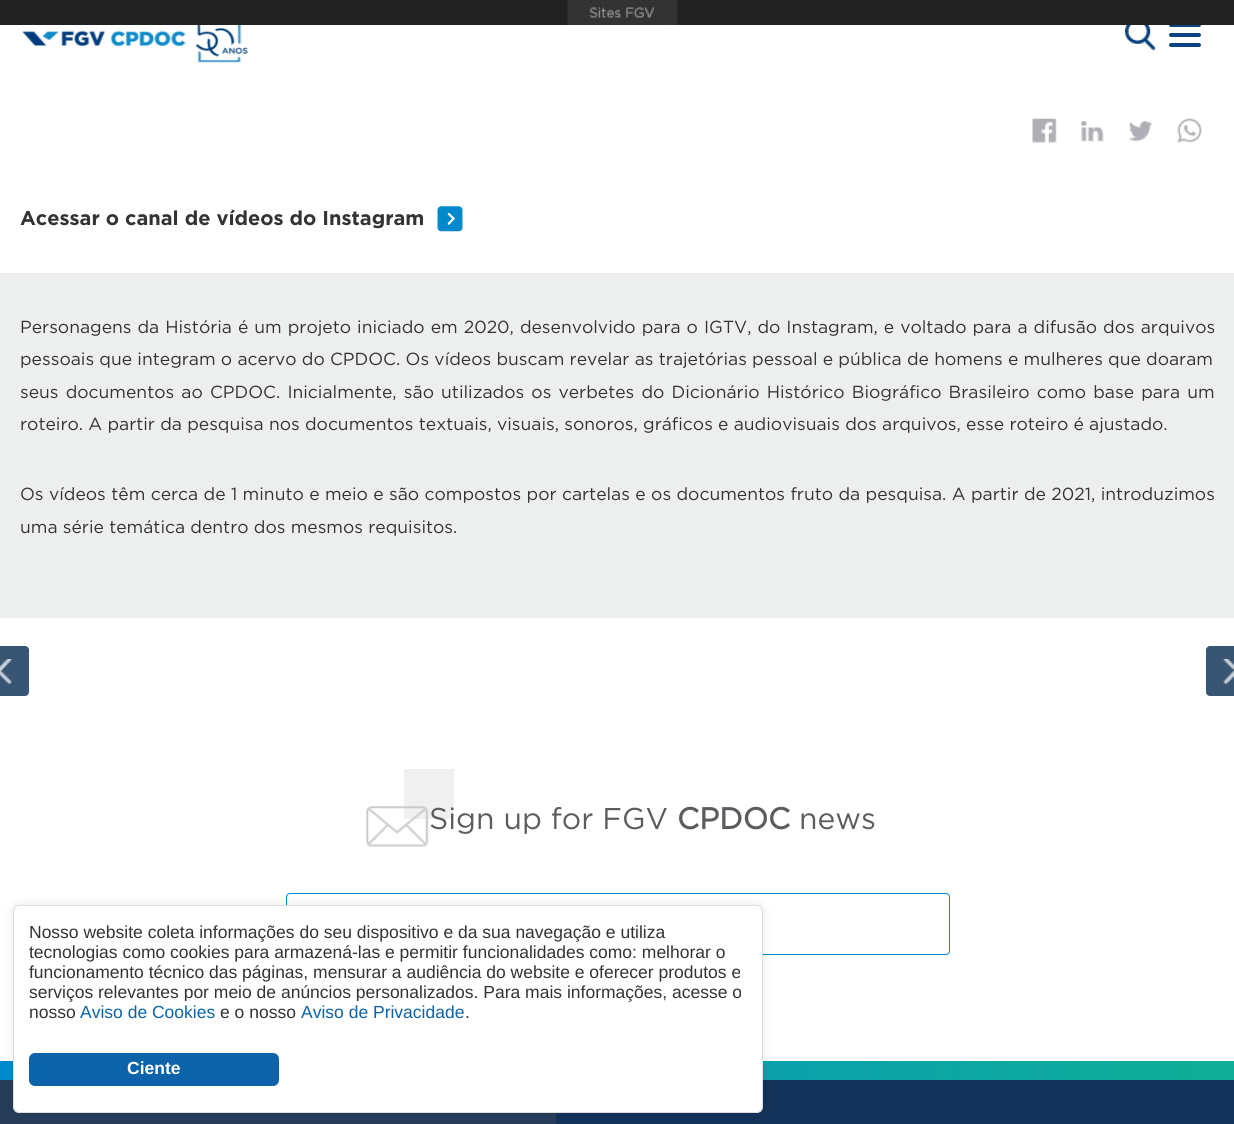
import math
import cairo

surface = cairo.ImageSurface(cairo.FORMAT_RGB24, 1234, 1124)
ctx = cairo.Context(surface)
options = cairo.FontOptions()
options.set_hint_metrics(cairo.HINT_METRICS_OFF)
options.set_hint_style(cairo.HINT_STYLE_NONE)
ctx.set_font_options(options)
ctx.set_miter_limit(4)


def set_color(code):
    ctx.set_source_rgb(*(v / 255 for v in bytes.fromhex(code[-6:])))


def draw_text(x, y, s, family, size, color, bold=False, italic=False):
    ctx.select_font_face(family, cairo.FONT_SLANT_ITALIC if italic else cairo.FONT_SLANT_NORMAL, cairo.FONT_WEIGHT_BOLD if bold else cairo.FONT_WEIGHT_NORMAL)
    ctx.set_font_size(size)
    set_color(color)
    ctx.move_to(x, y)
    ctx.show_text(s)


def draw_spaced(x, y, s, letter, word):
    ctx.move_to(x, y)
    for ch in s:
        ctx.show_text(ch)
        ctx.rel_move_to(letter + word * (ch == ' '), 0)


def fill_rect(x, y, w, h, color):
    set_color(color)
    ctx.rectangle(x, y, w, h)
    ctx.fill()


def rounded_rect(x, y, w, h, r):
    ctx.new_sub_path()
    for i, (u, v) in enumerate([(x + w - r, y + h - r), (x + r, y + h - r), (x + r, y + r), (x + w - r, y + r)]):
        ctx.arc(u, v, r, i * math.pi / 2, (i + 1) * math.pi / 2)
    ctx.close_path()


def draw_shadow(x, y, w, h, r, blur, alpha):
    ctx.push_group_with_content(cairo.CONTENT_ALPHA)
    ctx.set_operator(cairo.OPERATOR_SOURCE)
    for i in range(15, -16, -2):
        e = blur * i / 6
        if min(w, h) + 2 * e > 0:
            ctx.set_source_rgba(0, 0, 0, alpha * math.erfc((i - 1) / 8.5) / 2)
            rounded_rect(x - e, y - e, w + 2 * e, h + 2 * e, max(0, min(r + e + blur * .6, min(w, h) / 2 + e)))
            ctx.fill()
    ctx.mask(ctx.pop_group())


def draw_image(path, x, y, w, h):
    ctx.save()
    ctx.set_source_surface(cairo.ImageSurface.create_from_png(path), x, y)
    ctx.rectangle(x, y, w, h)
    ctx.fill()
    ctx.restore()


set_color("#ffffff")
ctx.paint()
set_color("#0b437e")
rounded_rect(1169, 23, 32, 4, 2)
ctx.fill()
fill_rect(0, 0, 1234, 25, "#222222")
draw_image("assets/img1.png", 567, 0, 111, 25)
draw_image("assets/img2.png", 22, 25, 226, 38)
draw_image("assets/img3.png", 1124, 25, 32, 26)
set_color("#0b437e")
rounded_rect(1169, 33, 32, 4, 2)
ctx.fill()
rounded_rect(1169, 43, 32, 4, 2)
ctx.fill()
draw_image("assets/img4.png", 1032, 118, 25, 25)
draw_image("assets/img5.png", 1081, 121, 23, 21)
draw_image("assets/img6.png", 1128, 121, 25, 21)
draw_image("assets/img7.png", 1177, 118, 25, 25)
draw_text(20, 225, "Acessar o canal de vídeos do Instagram", "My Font", 20, "#333333", bold=True)
draw_image("assets/img8.png", 437, 206, 26, 26)
fill_rect(0, 273, 1234, 345, "#edeeee")
ctx.select_font_face("Gotham")
ctx.set_font_size(17.5)
set_color("#333333")
draw_spaced(20, 333, "Personagens da História é um projeto iniciado em 2020, desenvolvido para o IGTV, do Instagram, e voltado para a difusão dos arquivos", 0, 0.75)
draw_text(20, 365, "pessoais que integram o acervo do CPDOC. Os vídeos buscam revelar as trajetórias pessoal e pública de homens e mulheres que doaram", "Gotham", 17.5, "#333333")
draw_spaced(20, 398, "seus documentos ao CPDOC. Inicialmente, são utilizados os verbetes do Dicionário Histórico Biográfico Brasileiro como base para um", 0, 1.9)
draw_text(20, 430, "roteiro. A partir da pesquisa nos documentos textuais, visuais, sonoros, gráficos e audiovisuais dos arquivos, esse roteiro é ajustado.", "Gotham", 17.5, "#333333")
draw_spaced(20, 500, "Os vídeos têm cerca de 1 minuto e meio e são compostos por cartelas e os documentos fruto da pesquisa. A partir de 2021, introduzimos", 0, 0.15)
draw_text(20, 533, "uma série temática dentro dos mesmos requisitos.", "Gotham", 17.5, "#333333")
set_color("#395574")
rounded_rect(-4, 646, 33, 50, 4)
ctx.fill()
draw_image("assets/img9.png", 0, 659, 12, 26)
rounded_rect(1206, 646, 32, 50, 4)
ctx.fill()
draw_image("assets/img10.png", 1223, 659, 11, 26)
fill_rect(404, 769, 50, 50, "#f0f0f0")
draw_image("assets/img11.png", 366, 806, 63, 41)
draw_text(429, 829, "Sign up for FGV", "Gotham", 30, "#5c5b5f")
draw_text(677, 829, "CPDOC", "Gotham", 30, "#5c5b5f", bold=True)
draw_text(799, 829, "news", "Gotham", 30, "#5c5b5f")
rounded_rect(286.5, 893.5, 663, 61, 3.5)
set_color("#008bc9")
ctx.set_line_width(1)
ctx.stroke()
fill_rect(556, 1080, 678, 44, "#14335a")
fill_rect(0, 1080, 556, 44, "#263d59")
gradient = cairo.LinearGradient(0, 1071, 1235, 1071)
gradient.add_color_stop_rgba(0, 0, 0.545, 0.804, 1)
gradient.add_color_stop_rgba(1, 0.063, 0.682, 0.588, 1)
ctx.set_source(gradient)
ctx.rectangle(0, 1061, 1234, 19)
ctx.fill()
set_color("#000000")
draw_shadow(13, 905, 750, 208, 6, 5, 0.1)
set_color("#ffffff")
rounded_rect(13.5, 905.5, 749, 207, 5.5)
ctx.fill_preserve()
set_color("#dddddd")
ctx.stroke()
draw_text(29, 938, "Nosso website coleta informações do seu dispositivo e da sua navegação e utiliza", "Liberation Sans", 17.5, "#333333")
draw_text(29, 958, "tecnologias como cookies para armazená-las e permitir funcionalidades como: melhorar o", "Liberation Sans", 17.5, "#333333")
draw_text(29, 978, "funcionamento técnico das páginas, mensurar a audiência do website e oferecer produtos e", "Liberation Sans", 17.5, "#333333")
draw_text(29, 998, "serviços relevantes por meio de anúncios personalizados. Para mais informações, acesse o", "Liberation Sans", 17.5, "#333333")
draw_text(29, 1018, "nosso", "Liberation Sans", 17.5, "#333333")
draw_text(80, 1018, "Aviso de Cookies", "Liberation Sans", 17.5, "#0c63aa")
fill_rect(184, 1001, 3, 1, "#ffffff")
draw_text(220, 1018, "e o nosso", "Liberation Sans", 17.5, "#333333")
draw_text(301, 1018, "Aviso de Privacidade", "Liberation Sans", 17.5, "#0c63aa")
fill_rect(356, 1001, 3, 1, "#ffffff")
draw_text(465, 1018, ".", "Liberation Sans", 17.5, "#333333")
set_color("#0c63aa")
rounded_rect(29, 1053, 250, 33, 6)
ctx.fill()
draw_text(127, 1074, "Ciente", "Liberation Sans", 17.5, "#ffffff", bold=True)
surface.write_to_png("output.png")
